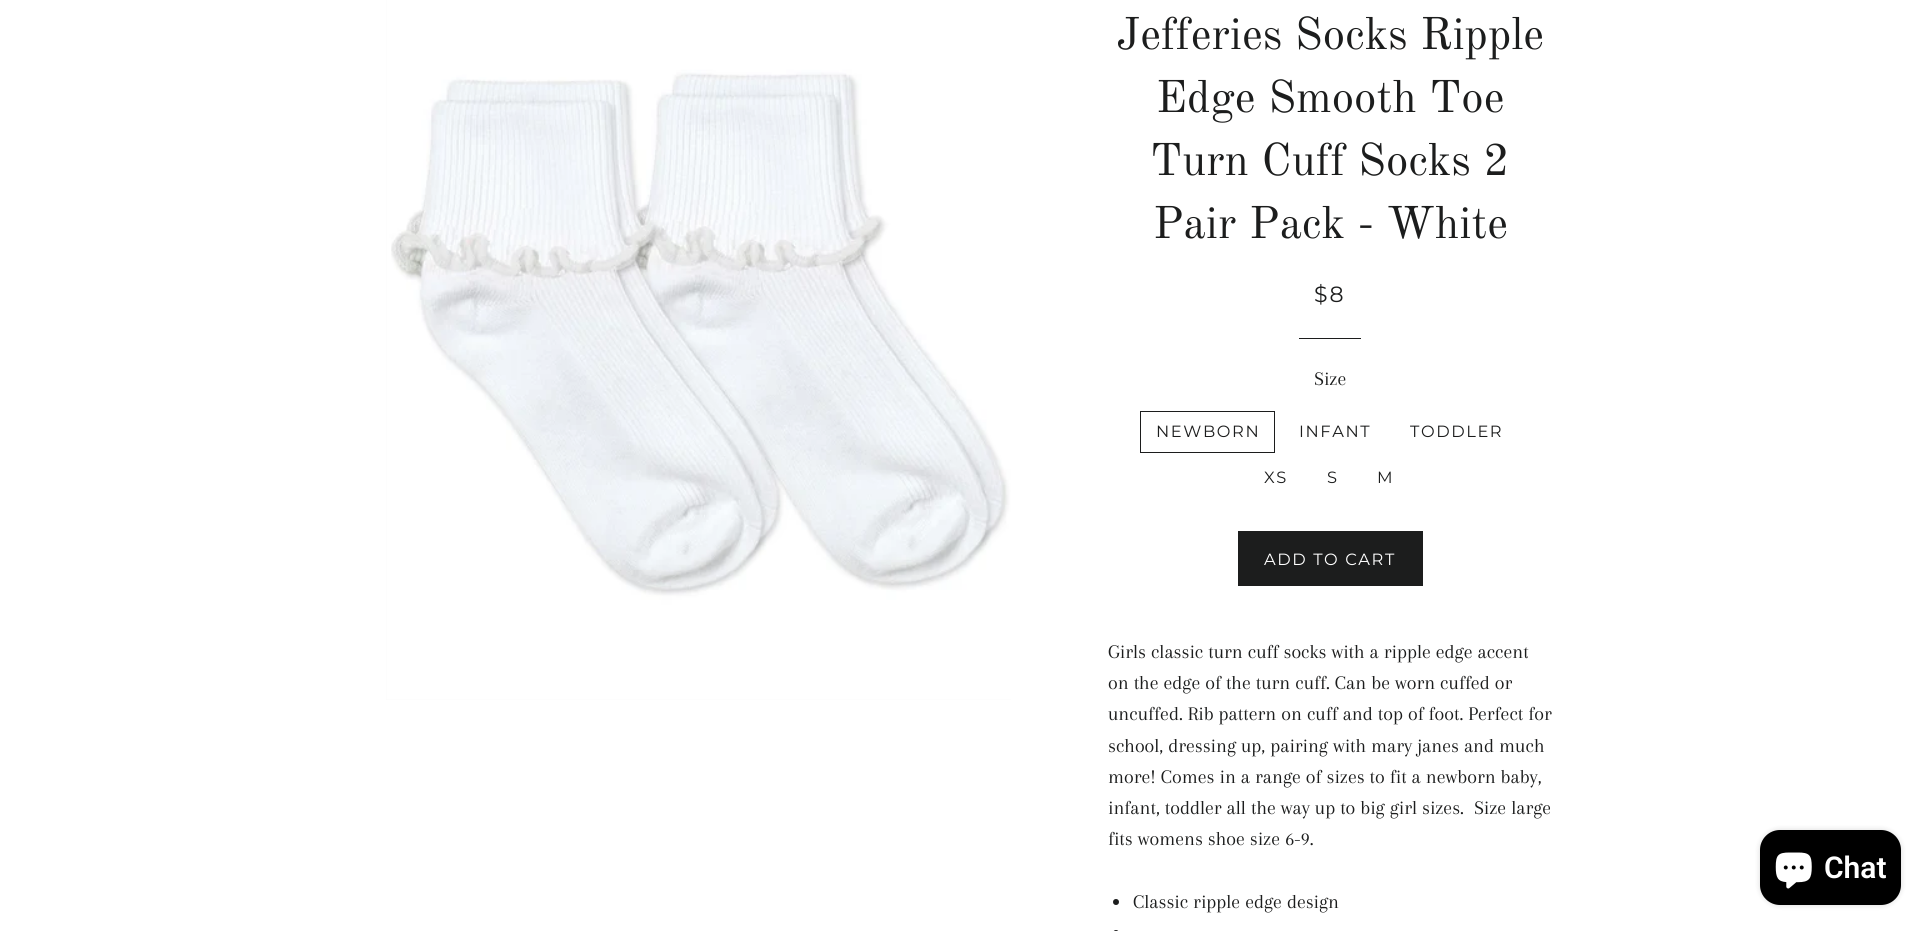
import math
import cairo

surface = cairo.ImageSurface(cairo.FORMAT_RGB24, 1928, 931)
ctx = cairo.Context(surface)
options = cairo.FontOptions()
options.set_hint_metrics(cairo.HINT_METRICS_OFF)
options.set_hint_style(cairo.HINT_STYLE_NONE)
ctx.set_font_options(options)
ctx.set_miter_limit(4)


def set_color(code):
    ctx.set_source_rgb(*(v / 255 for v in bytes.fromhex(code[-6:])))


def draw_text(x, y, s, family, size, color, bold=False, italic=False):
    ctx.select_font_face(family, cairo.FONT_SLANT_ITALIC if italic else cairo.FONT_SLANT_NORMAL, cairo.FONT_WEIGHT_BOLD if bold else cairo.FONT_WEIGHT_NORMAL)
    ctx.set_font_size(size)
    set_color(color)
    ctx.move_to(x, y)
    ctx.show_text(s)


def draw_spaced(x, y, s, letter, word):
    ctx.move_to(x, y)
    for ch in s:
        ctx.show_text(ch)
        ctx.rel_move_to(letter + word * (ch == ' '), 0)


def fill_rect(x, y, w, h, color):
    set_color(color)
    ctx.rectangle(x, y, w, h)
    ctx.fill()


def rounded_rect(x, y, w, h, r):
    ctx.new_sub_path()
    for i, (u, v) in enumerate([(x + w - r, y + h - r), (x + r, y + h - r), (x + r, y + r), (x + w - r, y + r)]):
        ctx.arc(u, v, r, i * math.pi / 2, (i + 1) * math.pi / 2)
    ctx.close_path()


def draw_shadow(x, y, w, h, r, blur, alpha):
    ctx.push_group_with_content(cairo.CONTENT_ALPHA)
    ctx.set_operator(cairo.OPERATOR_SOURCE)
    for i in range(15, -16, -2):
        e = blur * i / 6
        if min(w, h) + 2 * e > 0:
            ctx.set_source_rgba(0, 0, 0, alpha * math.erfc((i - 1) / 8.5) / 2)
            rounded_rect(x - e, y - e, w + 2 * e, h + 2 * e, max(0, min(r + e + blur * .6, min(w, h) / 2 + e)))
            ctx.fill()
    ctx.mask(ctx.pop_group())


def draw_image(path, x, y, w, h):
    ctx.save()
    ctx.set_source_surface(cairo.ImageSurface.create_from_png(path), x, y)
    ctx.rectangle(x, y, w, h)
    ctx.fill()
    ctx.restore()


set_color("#ffffff")
ctx.paint()
fill_rect(386, 0, 625, 700, "#f7f7f7")
draw_image("assets/img1.png", 386, 0, 625, 700)
draw_text(1116, 49, "Jefferies Socks Ripple", "Old Standard TT", 45, "#1c1d1d")
draw_text(1156, 112, "Edge Smooth Toe", "Old Standard TT", 45, "#1c1d1d")
draw_text(1150, 175, "Turn Cuff Socks 2", "Old Standard TT", 45, "#1c1d1d")
draw_text(1153, 238, "Pair Pack - White", "Old Standard TT", 45, "#1c1d1d")
ctx.select_font_face("Montserrat Thin")
ctx.set_font_size(22)
draw_spaced(1314, 302, "$8", 2, 0)
fill_rect(1299, 338, 62, 1, "#1c1d1d")
draw_text(1314, 385, "Size", "Arapey", 20, "#1c1d1d")
ctx.rectangle(1140.5, 411.5, 134, 41)
ctx.set_line_width(1)
ctx.stroke()
ctx.select_font_face("Montserrat Thin")
ctx.set_font_size(16.25)
draw_spaced(1156, 437, "NEWBORN", 1.6, 0)
draw_spaced(1299, 437, "INFANT", 1.6, 0)
draw_spaced(1410, 437, "TODDLER", 1.6, 0)
draw_spaced(1264, 483, "XS", 1.6, 0)
draw_spaced(1327, 483, "S", 1.6, 0)
draw_spaced(1377, 483, "M", 1.6, 0)
fill_rect(1238, 531, 185, 55, "#1c1d1d")
set_color("#ffffff")
draw_spaced(1264, 565, "ADD TO CART", 1.6, 0)
draw_text(1108, 658, "Girls classic turn cuff socks with a ripple edge accent", "Arapey", 20, "#1c1d1d")
draw_text(1108, 689, "on the edge of the turn cuff. Can be worn cuffed or", "Arapey", 20, "#1c1d1d")
draw_text(1108, 720, "uncuffed. Rib pattern on cuff and top of foot. Perfect for", "Arapey", 20, "#1c1d1d")
draw_text(1108, 752, "school, dressing up, pairing with mary janes and much", "Arapey", 20, "#1c1d1d")
draw_text(1108, 783, "more! Comes in a range of sizes to fit a newborn baby,", "Arapey", 20, "#1c1d1d")
draw_text(1108, 814, "infant, toddler all the way up to big girl sizes.  Size large", "Arapey", 20, "#1c1d1d")
draw_text(1108, 845, "fits womens shoe size 6-9.", "Arapey", 20, "#1c1d1d")
ctx.new_path()
ctx.arc(1116, 902, 3, 0, 2 * math.pi)
ctx.fill()
draw_text(1133, 908, "Classic ripple edge design", "Arapey", 20, "#1c1d1d")
rounded_rect(1113, 930, 6, 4, 3)
ctx.fill()
set_color("#000000")
draw_shadow(1760, 830, 141, 75, 20, 3, 0.15)
set_color("#000000")
rounded_rect(1760, 830, 141, 75, 20)
ctx.fill()
draw_image("assets/img2.png", 1775, 852, 37, 37)
draw_text(1824, 878, "Chat", "Roboto SemiBold", 30, "#ffffff")
surface.write_to_png("output.png")
